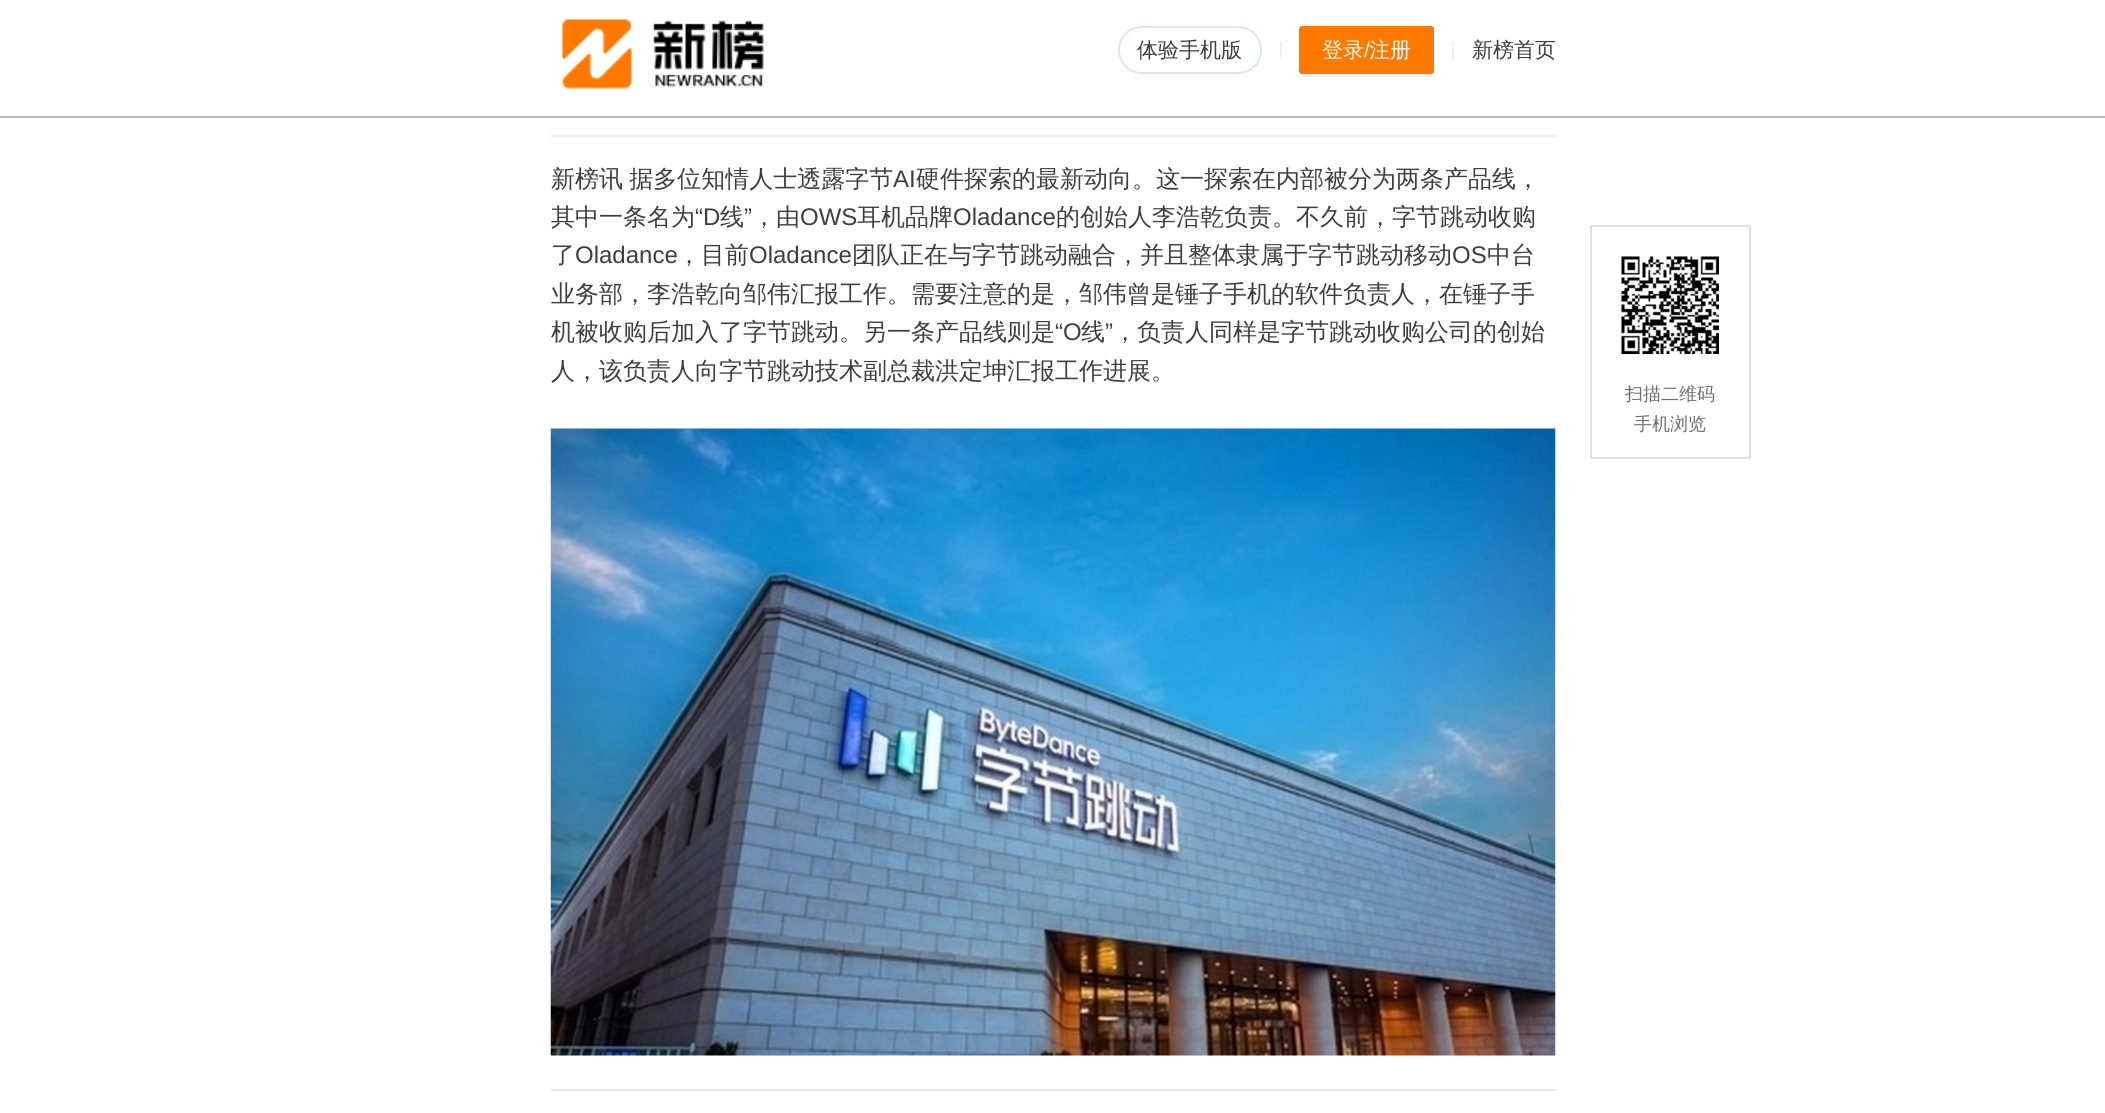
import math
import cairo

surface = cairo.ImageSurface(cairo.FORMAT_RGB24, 2105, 1113)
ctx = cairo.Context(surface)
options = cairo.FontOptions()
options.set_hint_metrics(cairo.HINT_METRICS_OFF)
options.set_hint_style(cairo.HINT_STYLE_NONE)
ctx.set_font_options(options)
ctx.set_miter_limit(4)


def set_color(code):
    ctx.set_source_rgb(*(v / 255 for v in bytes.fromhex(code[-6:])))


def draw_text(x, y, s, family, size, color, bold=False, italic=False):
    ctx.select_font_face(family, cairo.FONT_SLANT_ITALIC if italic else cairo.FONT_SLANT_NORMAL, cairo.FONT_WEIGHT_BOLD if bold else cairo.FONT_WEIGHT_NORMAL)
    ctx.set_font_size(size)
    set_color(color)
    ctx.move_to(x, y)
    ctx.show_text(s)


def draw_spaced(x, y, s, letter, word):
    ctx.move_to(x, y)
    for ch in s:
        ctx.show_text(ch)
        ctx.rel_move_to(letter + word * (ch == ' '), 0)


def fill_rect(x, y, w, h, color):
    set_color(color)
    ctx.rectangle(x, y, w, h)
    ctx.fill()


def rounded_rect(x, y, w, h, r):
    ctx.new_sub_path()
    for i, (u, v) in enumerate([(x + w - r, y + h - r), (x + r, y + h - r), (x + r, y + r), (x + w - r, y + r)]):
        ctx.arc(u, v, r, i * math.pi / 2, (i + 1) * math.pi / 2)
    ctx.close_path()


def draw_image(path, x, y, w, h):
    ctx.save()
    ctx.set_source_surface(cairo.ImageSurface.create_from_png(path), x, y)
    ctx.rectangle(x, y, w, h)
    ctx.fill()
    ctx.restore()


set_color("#ffffff")
ctx.paint()
fill_rect(0, 116, 2105, 2, "#bbbbbb")
draw_image("assets/img1.png", 562, 19, 202, 70)
rounded_rect(1119, 27, 142, 46, 23)
set_color("#e1e6e6")
ctx.stroke()
draw_text(1137, 57, "体验手机版", "WenQuanYi Zen Hei Medium", 21, "#3e3e3e")
fill_rect(1280, 41, 2, 18, "#f0f0f0")
set_color("#f4f4f4")
ctx.new_path()
ctx.move_to(1299, 70)
ctx.line_to(1299, 74)
ctx.curve_to(1299, 76, 1300, 77, 1302, 77)
ctx.line_to(1431, 77)
ctx.curve_to(1433, 77, 1434, 76, 1434, 74)
ctx.line_to(1434, 70)
ctx.curve_to(1434, 72, 1433, 74, 1431, 74)
ctx.line_to(1302, 74)
ctx.curve_to(1300, 74, 1299, 72, 1299, 70)
ctx.close_path()
ctx.fill()
set_color("#ff7800")
rounded_rect(1299, 26, 135, 48, 3)
ctx.fill()
draw_text(1322, 57, "登录", "WenQuanYi Zen Hei Medium", 21, "#ffffff")
draw_text(1364, 57, "/", "Liberation Sans", 21, "#ffffff")
draw_text(1369, 57, "注册", "WenQuanYi Zen Hei Medium", 21, "#ffffff")
fill_rect(1452, 41, 2, 18, "#f0f0f0")
draw_text(1472, 57, "新榜首页", "WenQuanYi Zen Hei Medium", 21, "#3e3e3e")
fill_rect(551, 135, 1005, 2, "#f0f0f0")
ctx.set_font_size(24)
set_color("#3e3e3e")
draw_spaced(551, 187, "新榜讯 据多位知情人士透露字节", 0, -1)
draw_text(893, 187, "AI", "Liberation Sans", 24, "#3e3e3e")
draw_text(916, 187, "硬件探索的最新动向。这一探索在内部被分为两条产品线，", "WenQuanYi Zen Hei Medium", 24, "#3e3e3e")
draw_text(551, 225, "其中一条名为", "WenQuanYi Zen Hei Medium", 24, "#3e3e3e")
draw_text(695, 225, "“D", "Liberation Sans", 24, "#3e3e3e")
draw_text(720, 225, "线", "WenQuanYi Zen Hei Medium", 24, "#3e3e3e")
draw_text(744, 225, "”", "Liberation Sans", 24, "#3e3e3e")
draw_text(752, 225, "，由", "WenQuanYi Zen Hei Medium", 24, "#3e3e3e")
draw_text(800, 225, "OWS", "Liberation Sans", 24, "#3e3e3e")
draw_text(857, 225, "耳机品牌", "WenQuanYi Zen Hei Medium", 24, "#3e3e3e")
draw_text(953, 225, "Oladance", "Liberation Sans", 24, "#3e3e3e")
draw_text(1056, 225, "的创始人李浩乾负责。不久前，字节跳动收购", "WenQuanYi Zen Hei Medium", 24, "#3e3e3e")
draw_text(551, 263, "了", "WenQuanYi Zen Hei Medium", 24, "#3e3e3e")
draw_text(575, 263, "Oladance", "Liberation Sans", 24, "#3e3e3e")
draw_text(677, 263, "，目前", "WenQuanYi Zen Hei Medium", 24, "#3e3e3e")
draw_text(749, 263, "Oladance", "Liberation Sans", 24, "#3e3e3e")
draw_text(852, 263, "团队正在与字节跳动融合，并且整体隶属于字节跳动移动", "WenQuanYi Zen Hei Medium", 24, "#3e3e3e")
draw_text(1452, 263, "OS", "Liberation Sans", 24, "#3e3e3e")
draw_text(1487, 263, "中台", "WenQuanYi Zen Hei Medium", 24, "#3e3e3e")
draw_text(551, 302, "业务部，李浩乾向邹伟汇报工作。需要注意的是，邹伟曾是锤子手机的软件负责人，在锤子手", "WenQuanYi Zen Hei Medium", 24, "#3e3e3e")
draw_text(551, 340, "机被收购后加入了字节跳动。另一条产品线则是", "WenQuanYi Zen Hei Medium", 24, "#3e3e3e")
draw_text(1055, 340, "“O", "Liberation Sans", 24, "#3e3e3e")
draw_text(1081, 340, "线", "WenQuanYi Zen Hei Medium", 24, "#3e3e3e")
draw_text(1105, 340, "”", "Liberation Sans", 24, "#3e3e3e")
draw_text(1113, 340, "，负责人同样是字节跳动收购公司的创始", "WenQuanYi Zen Hei Medium", 24, "#3e3e3e")
draw_text(551, 379, "人，该负责人向字节跳动技术副总裁洪定坤汇报工作进展。", "WenQuanYi Zen Hei Medium", 24, "#3e3e3e")
draw_image("assets/img2.png", 550, 428, 1006, 628)
ctx.rectangle(1591, 226, 159, 232)
set_color("#dfdfdf")
ctx.stroke()
draw_image("assets/img3.png", 1621, 256, 98, 98)
draw_text(1625, 400, "扫描二维码", "WenQuanYi Zen Hei Medium", 18, "#6e6e6e")
draw_text(1634, 430, "手机浏览", "WenQuanYi Zen Hei Medium", 18, "#6e6e6e")
fill_rect(551, 1089, 1005, 2, "#e5e5e5")
surface.write_to_png("output.png")
